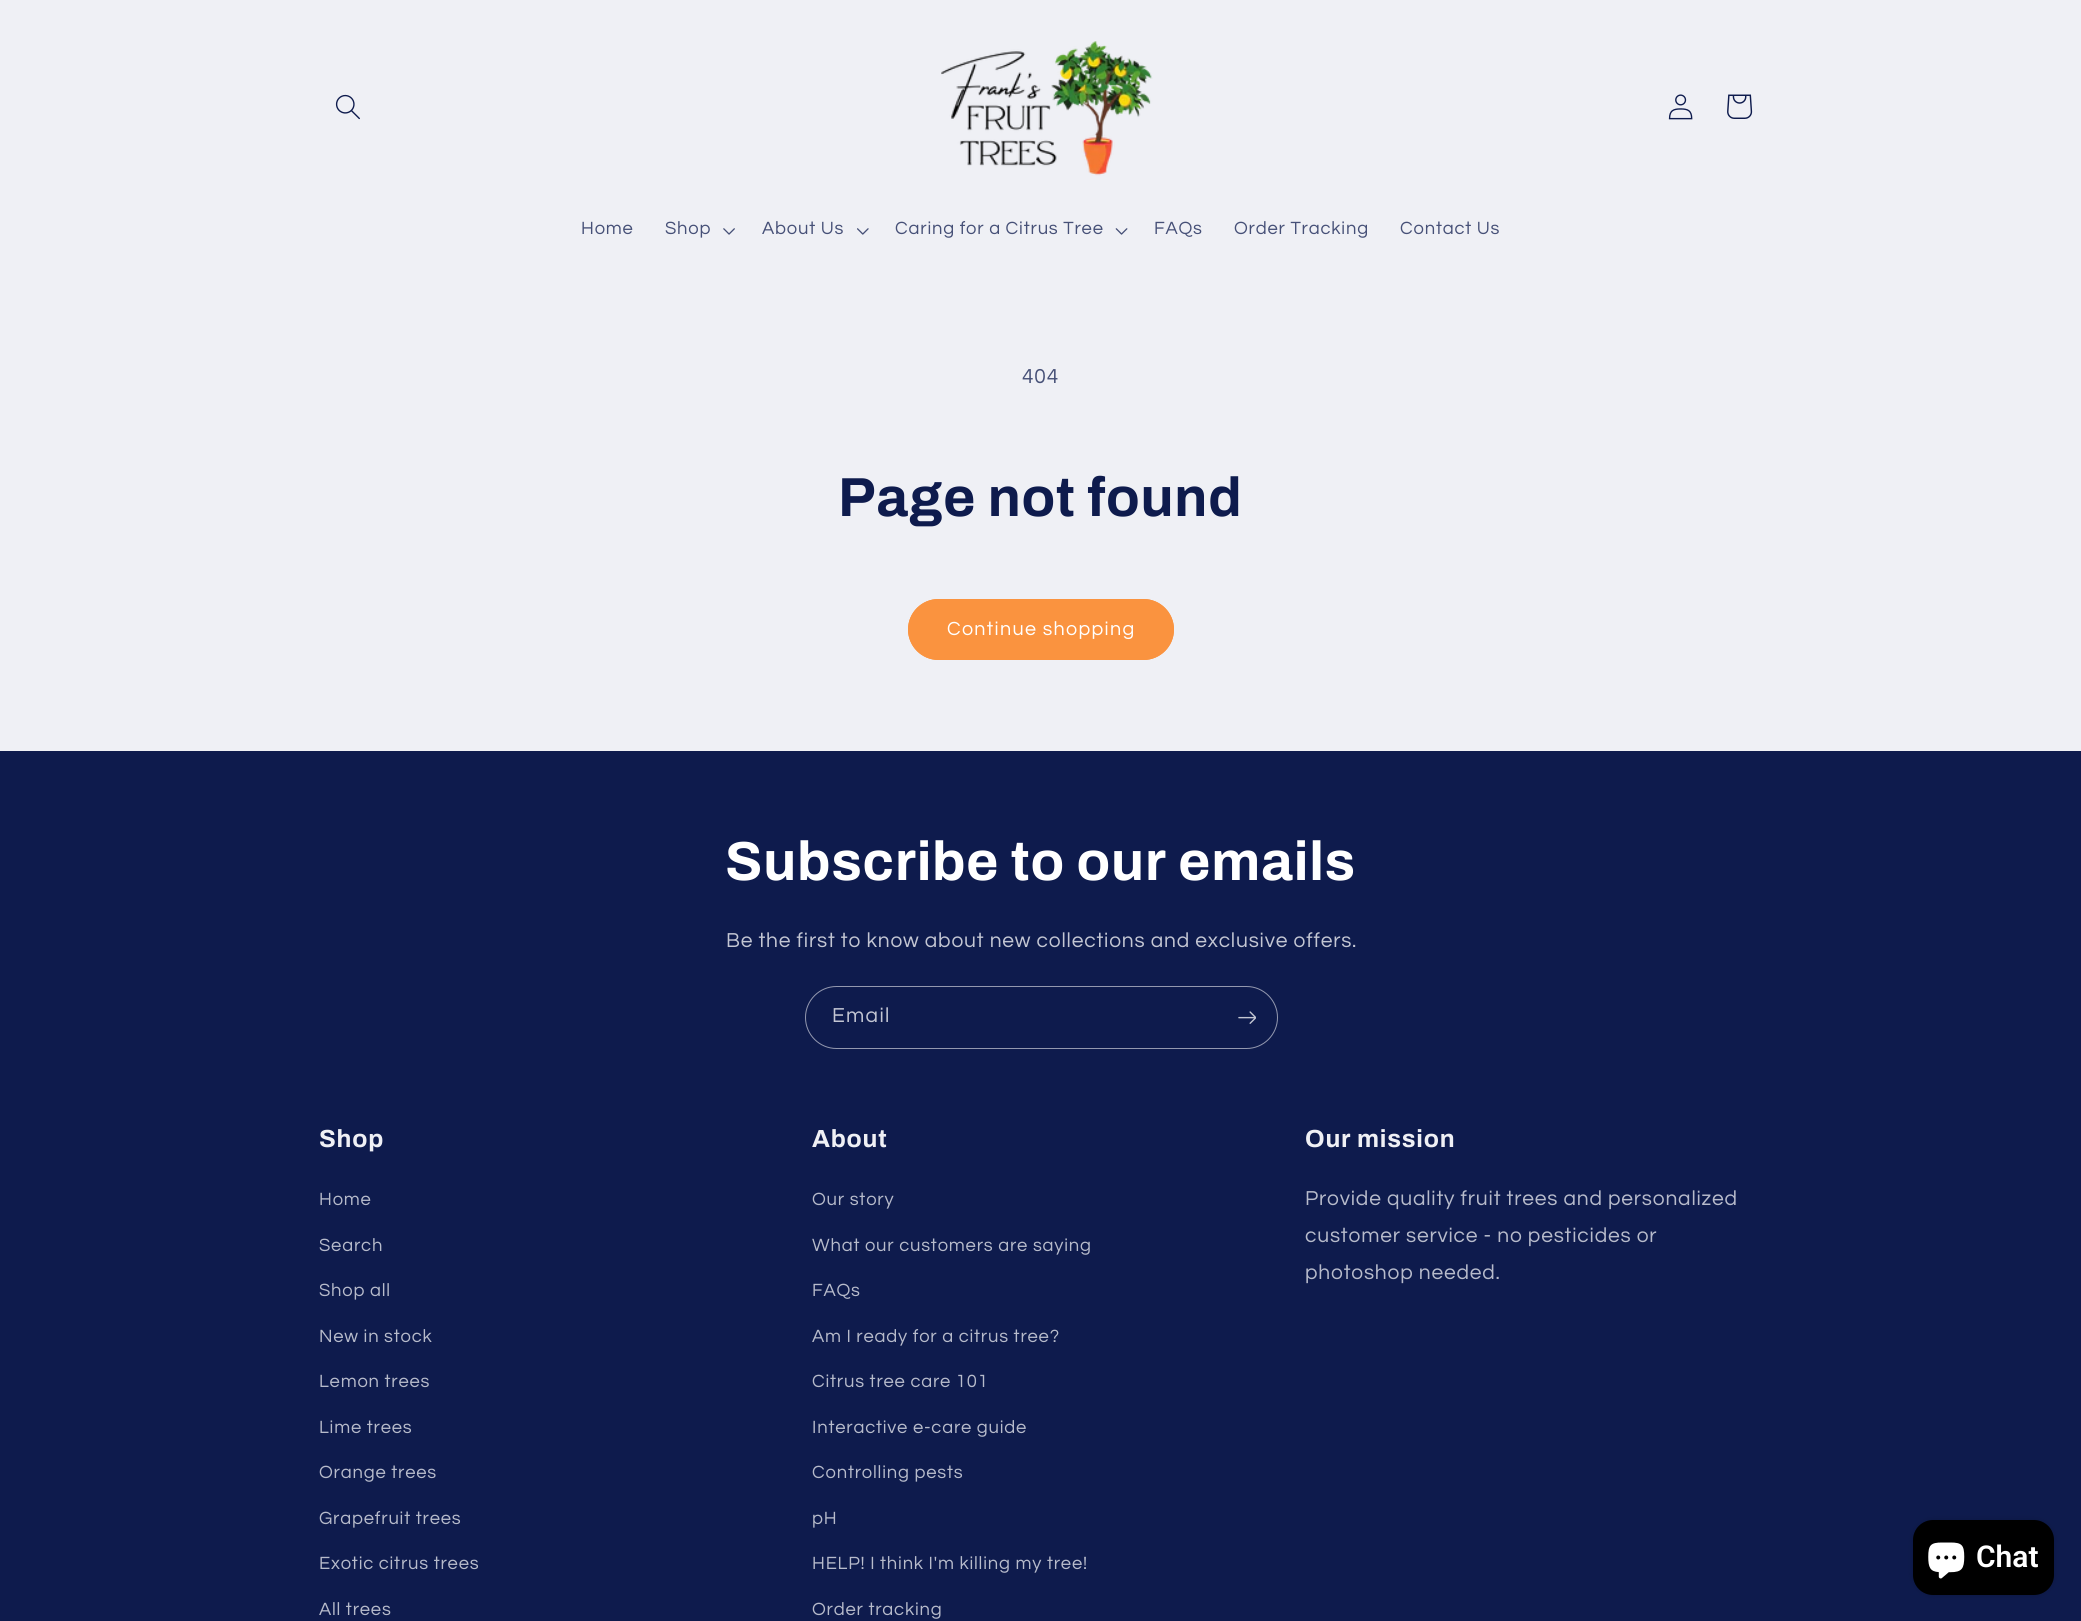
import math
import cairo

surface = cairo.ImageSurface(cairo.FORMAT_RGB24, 2081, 1621)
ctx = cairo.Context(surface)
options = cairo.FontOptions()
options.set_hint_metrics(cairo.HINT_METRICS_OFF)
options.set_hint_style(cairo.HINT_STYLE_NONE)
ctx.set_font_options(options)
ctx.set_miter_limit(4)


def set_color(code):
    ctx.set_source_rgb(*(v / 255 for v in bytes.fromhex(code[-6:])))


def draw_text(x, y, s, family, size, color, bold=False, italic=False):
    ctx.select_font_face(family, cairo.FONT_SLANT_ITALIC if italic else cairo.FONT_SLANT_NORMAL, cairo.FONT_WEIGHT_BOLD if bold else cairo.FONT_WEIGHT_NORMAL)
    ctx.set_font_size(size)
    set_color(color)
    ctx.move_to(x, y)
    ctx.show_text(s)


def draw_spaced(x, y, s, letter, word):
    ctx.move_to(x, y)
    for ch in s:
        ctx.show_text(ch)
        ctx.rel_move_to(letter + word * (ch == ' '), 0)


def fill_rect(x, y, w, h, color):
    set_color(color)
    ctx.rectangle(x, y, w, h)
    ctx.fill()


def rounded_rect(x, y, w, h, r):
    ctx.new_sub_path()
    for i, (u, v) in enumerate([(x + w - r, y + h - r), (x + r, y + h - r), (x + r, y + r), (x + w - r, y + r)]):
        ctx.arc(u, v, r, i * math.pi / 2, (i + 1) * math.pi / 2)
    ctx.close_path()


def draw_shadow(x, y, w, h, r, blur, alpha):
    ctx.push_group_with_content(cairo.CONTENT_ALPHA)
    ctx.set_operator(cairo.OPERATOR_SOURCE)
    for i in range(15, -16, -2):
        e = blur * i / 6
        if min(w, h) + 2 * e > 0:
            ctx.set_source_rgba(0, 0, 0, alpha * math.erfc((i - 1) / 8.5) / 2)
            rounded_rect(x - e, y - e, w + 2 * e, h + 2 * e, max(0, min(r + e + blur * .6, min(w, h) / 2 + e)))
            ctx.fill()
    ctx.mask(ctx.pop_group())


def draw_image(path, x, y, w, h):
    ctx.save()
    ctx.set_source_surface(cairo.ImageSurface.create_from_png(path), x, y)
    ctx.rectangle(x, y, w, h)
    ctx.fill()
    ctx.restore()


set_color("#eff0f5")
ctx.paint()
draw_image("assets/img1.png", 335, 94, 25, 26)
draw_image("assets/img2.png", 941, 41, 212, 135)
draw_image("assets/img3.png", 1668, 94, 25, 26)
draw_image("assets/img4.png", 1727, 94, 26, 25)
ctx.select_font_face("Questrial")
ctx.set_font_size(18.4)
set_color("#465077")
draw_spaced(581, 234, "Home", 0.8, 0)
draw_spaced(665, 234, "Shop", 0.8, 0)
draw_image("assets/img5.png", 723, 228, 12, 7)
draw_spaced(762, 234, "About Us", 0.8, 0)
draw_image("assets/img6.png", 857, 228, 12, 7)
draw_spaced(895, 234, "Caring for a Citrus Tree", 0.8, 0)
draw_image("assets/img7.png", 1115, 228, 13, 7)
draw_spaced(1154, 234, "FAQs", 0.8, 0)
draw_spaced(1234, 234, "Order Tracking", 0.8, 0)
draw_spaced(1400, 234, "Contact Us", 0.8, 0)
ctx.set_font_size(21)
draw_spaced(1022, 383, "404", 0.8, 0)
ctx.select_font_face("Archivo", cairo.FONT_SLANT_NORMAL, cairo.FONT_WEIGHT_BOLD)
ctx.set_font_size(55)
set_color("#0e1b4d")
draw_spaced(838, 516, "Page not found", 0.8, 0)
set_color("#fa933f")
rounded_rect(908, 599, 266, 61, 30.5)
ctx.fill()
rounded_rect(908.5, 599.5, 265, 60, 30)
ctx.set_line_width(1)
ctx.stroke()
ctx.select_font_face("Questrial")
ctx.set_font_size(19.75)
set_color("#ffffff")
draw_spaced(947, 635, "Continue shopping", 1.3, 0)
fill_rect(0, 751, 2081, 870, "#0e1b4d")
ctx.select_font_face("Archivo", cairo.FONT_SLANT_NORMAL, cairo.FONT_WEIGHT_BOLD)
ctx.set_font_size(55)
set_color("#ffffff")
draw_spaced(725, 880, "Subscribe to our emails", 0.8, 0)
ctx.select_font_face("Questrial")
ctx.set_font_size(21)
set_color("#c3c6d3")
draw_spaced(726, 947, "Be the first to know about new collections and exclusive offers.", 0.8, 0)
rounded_rect(805.5, 986.5, 472, 62, 31)
set_color("#9398af")
ctx.stroke()
set_color("#c3c6d3")
draw_spaced(832, 1022, "Email", 1.3, 0)
draw_image("assets/img8.png", 1238, 1011, 18, 13)
ctx.select_font_face("Archivo", cairo.FONT_SLANT_NORMAL, cairo.FONT_WEIGHT_BOLD)
ctx.set_font_size(24.75)
set_color("#eff0f5")
draw_spaced(319, 1147, "Shop", 0.8, 0)
ctx.select_font_face("Questrial")
ctx.set_font_size(18.4)
set_color("#b7bbcb")
draw_spaced(319, 1205, "Home", 0.8, 0)
draw_spaced(319, 1251, "Search", 0.8, 0)
draw_spaced(319, 1296, "Shop all", 0.8, 0)
draw_spaced(319, 1342, "New in stock", 0.8, 0)
draw_spaced(319, 1387, "Lemon trees", 0.8, 0)
draw_spaced(319, 1433, "Lime trees", 0.8, 0)
draw_spaced(319, 1478, "Orange trees", 0.8, 0)
draw_spaced(319, 1524, "Grapefruit trees", 0.8, 0)
draw_spaced(319, 1569, "Exotic citrus trees", 0.8, 0)
draw_spaced(319, 1615, "All trees", 0.8, 0)
ctx.select_font_face("Archivo", cairo.FONT_SLANT_NORMAL, cairo.FONT_WEIGHT_BOLD)
ctx.set_font_size(24.75)
set_color("#eff0f5")
draw_spaced(812, 1147, "About", 0.8, 0)
ctx.select_font_face("Questrial")
ctx.set_font_size(18.4)
set_color("#b7bbcb")
draw_spaced(812, 1205, "Our story", 0.8, 0)
draw_spaced(812, 1251, "What our customers are saying", 0.8, 0)
draw_spaced(812, 1296, "FAQs", 0.8, 0)
draw_spaced(812, 1342, "Am I ready for a citrus tree?", 0.8, 0)
draw_spaced(812, 1387, "Citrus tree care 101", 0.8, 0)
draw_spaced(812, 1433, "Interactive e-care guide", 0.8, 0)
draw_spaced(812, 1478, "Controlling pests", 0.8, 0)
draw_spaced(812, 1524, "pH", 0.8, 0)
draw_spaced(812, 1569, "HELP! I think I'm killing my tree!", 0.8, 0)
draw_spaced(812, 1615, "Order tracking", 0.8, 0)
ctx.select_font_face("Archivo", cairo.FONT_SLANT_NORMAL, cairo.FONT_WEIGHT_BOLD)
ctx.set_font_size(24.75)
set_color("#eff0f5")
draw_spaced(1305, 1147, "Our mission", 0.8, 0)
ctx.select_font_face("Questrial")
ctx.set_font_size(21)
set_color("#b7bbcb")
draw_spaced(1305, 1205, "Provide quality fruit trees and personalized", 0.8, 0)
draw_spaced(1305, 1242, "customer service - no pesticides or", 0.8, 0)
draw_spaced(1305, 1279, "photoshop needed.", 0.8, 0)
set_color("#000000")
draw_shadow(1913, 1520, 141, 75, 20, 3, 0.15)
set_color("#000000")
rounded_rect(1913, 1520, 141, 75, 20)
ctx.fill()
draw_image("assets/img9.png", 1928, 1542, 37, 37)
draw_text(1976, 1567, "Chat", "Roboto SemiBold", 30, "#ffffff")
surface.write_to_png("output.png")
